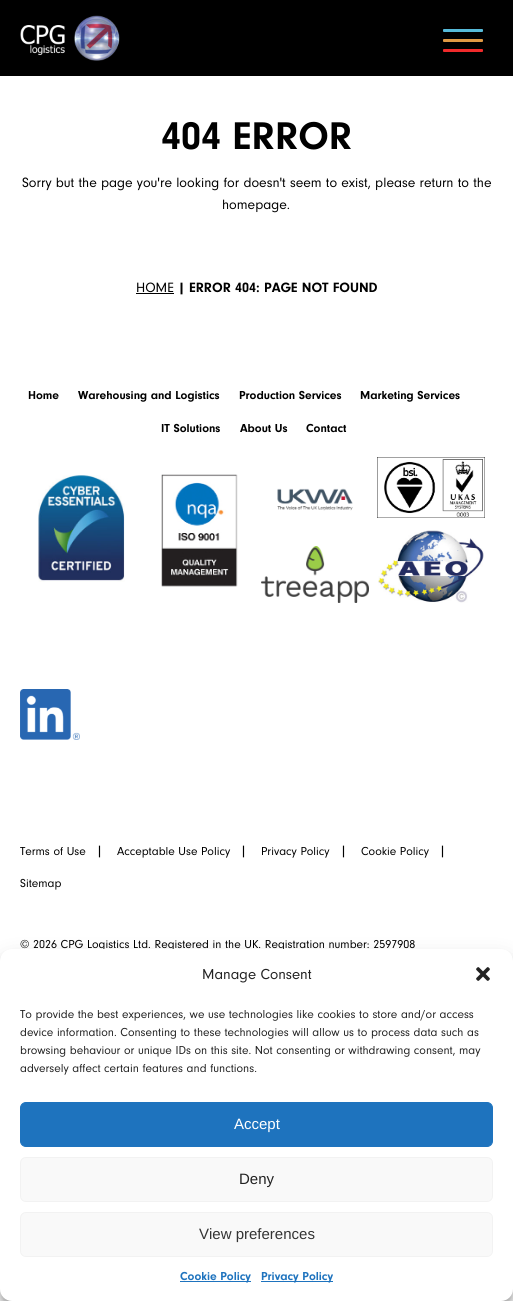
import math
import cairo

surface = cairo.ImageSurface(cairo.FORMAT_RGB24, 513, 1301)
ctx = cairo.Context(surface)
options = cairo.FontOptions()
options.set_hint_metrics(cairo.HINT_METRICS_OFF)
options.set_hint_style(cairo.HINT_STYLE_NONE)
ctx.set_font_options(options)
ctx.set_miter_limit(4)


def set_color(code):
    ctx.set_source_rgb(*(v / 255 for v in bytes.fromhex(code[-6:])))


def draw_text(x, y, s, family, size, color, bold=False, italic=False):
    ctx.select_font_face(family, cairo.FONT_SLANT_ITALIC if italic else cairo.FONT_SLANT_NORMAL, cairo.FONT_WEIGHT_BOLD if bold else cairo.FONT_WEIGHT_NORMAL)
    ctx.set_font_size(size)
    set_color(color)
    ctx.move_to(x, y)
    ctx.show_text(s)


def fill_rect(x, y, w, h, color):
    set_color(color)
    ctx.rectangle(x, y, w, h)
    ctx.fill()


def rounded_rect(x, y, w, h, r):
    ctx.new_sub_path()
    for i, (u, v) in enumerate([(x + w - r, y + h - r), (x + r, y + h - r), (x + r, y + r), (x + w - r, y + r)]):
        ctx.arc(u, v, r, i * math.pi / 2, (i + 1) * math.pi / 2)
    ctx.close_path()


def draw_shadow(x, y, w, h, r, blur, alpha):
    ctx.push_group_with_content(cairo.CONTENT_ALPHA)
    ctx.set_operator(cairo.OPERATOR_SOURCE)
    for i in range(15, -16, -2):
        e = blur * i / 6
        if min(w, h) + 2 * e > 0:
            ctx.set_source_rgba(0, 0, 0, alpha * math.erfc((i - 1) / 8.5) / 2)
            rounded_rect(x - e, y - e, w + 2 * e, h + 2 * e, max(0, min(r + e + blur * .6, min(w, h) / 2 + e)))
            ctx.fill()
    ctx.mask(ctx.pop_group())


def draw_image(path, x, y, w, h):
    ctx.save()
    ctx.set_source_surface(cairo.ImageSurface.create_from_png(path), x, y)
    ctx.rectangle(x, y, w, h)
    ctx.fill()
    ctx.restore()


set_color("#ffffff")
ctx.paint()
fill_rect(0, 0, 513, 76, "#000000")
draw_image("assets/img1.png", 20, 15, 100, 46)
set_color("#df9944")
rounded_rect(443, 39, 40, 3, 1)
ctx.fill()
set_color("#56bad9")
rounded_rect(443, 29, 40, 3, 1)
ctx.fill()
set_color("#f02a2b")
rounded_rect(443, 49, 40, 3, 1)
ctx.fill()
draw_text(161, 149, "404 ERROR", "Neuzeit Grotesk", 40, "#000000", bold=True)
draw_text(22, 187, "Sorry but the page you're looking for doesn't seem to exist, please return to the", "Neuzeit Grotesk", 14, "#000000")
draw_text(222, 209, "homepage.", "Neuzeit Grotesk", 14, "#000000")
draw_text(136, 292, "HOME", "Neuzeit Grotesk", 14, "#000000")
fill_rect(136, 293, 38, 1, "#000000")
draw_text(178, 292, "| ERROR 404: PAGE NOT FOUND", "Neuzeit Grotesk", 14, "#000000", bold=True)
draw_text(28, 399, "Home", "Neuzeit Grotesk", 12, "#000000", bold=True)
draw_text(78, 399, "Warehousing and Logistics", "Neuzeit Grotesk", 12, "#000000", bold=True)
draw_text(239, 399, "Production Services", "Neuzeit Grotesk", 12, "#000000", bold=True)
draw_text(360, 399, "Marketing Services", "Neuzeit Grotesk", 12, "#000000", bold=True)
draw_text(161, 432, "IT Solutions", "Neuzeit Grotesk", 12, "#000000", bold=True)
draw_text(240, 432, "About Us", "Neuzeit Grotesk", 12, "#000000", bold=True)
draw_text(306, 432, "Contact", "Neuzeit Grotesk", 12, "#000000", bold=True)
draw_image("assets/img2.png", 38, 475, 87, 107)
draw_image("assets/img3.png", 161, 474, 77, 113)
draw_image("assets/img4.png", 277, 488, 76, 23)
draw_image("assets/img5.png", 261, 546, 108, 57)
draw_image("assets/img6.png", 377, 457, 108, 61)
draw_image("assets/img7.png", 378, 530, 106, 73)
draw_image("assets/img8.png", 20, 689, 60, 51)
draw_text(20, 855, "Terms of Use", "Neuzeit Grotesk", 12, "#000000")
draw_text(96, 855, "|", "Neuzeit Grotesk", 14, "#000000")
draw_text(117, 855, "Acceptable Use Policy", "Neuzeit Grotesk", 12, "#000000")
draw_text(240, 855, "|", "Neuzeit Grotesk", 14, "#000000")
draw_text(261, 855, "Privacy Policy", "Neuzeit Grotesk", 12, "#000000")
draw_text(340, 855, "|", "Neuzeit Grotesk", 14, "#000000")
draw_text(361, 855, "Cookie Policy", "Neuzeit Grotesk", 12, "#000000")
draw_text(439, 855, "|", "Neuzeit Grotesk", 14, "#000000")
draw_text(20, 887, "Sitemap", "Neuzeit Grotesk", 12, "#000000")
draw_text(20, 948, "© 2026 CPG Logistics Ltd. Registered in the UK. Registration number: 2597908", "Neuzeit Grotesk", 12, "#000000")
set_color("#000000")
draw_shadow(0, 955, 513, 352, 12, 3, 0.23)
draw_shadow(0, 959, 513, 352, 12, 10, 0.19)
set_color("#808080")
draw_shadow(443, 1227, 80, 60, 2, 2.5, 1)
set_color("#ffffff")
rounded_rect(0, 949, 513, 352, 12)
ctx.fill()
draw_text(202, 979, "Manage Consent", "Neuzeit Grotesk", 15, "#222222")
draw_image("assets/img9.png", 476, 967, 14, 14)
draw_text(20, 1018, "To provide the best experiences, we use technologies like cookies to store and/or access", "Neuzeit Grotesk", 12, "#222222")
draw_text(20, 1036, "device information. Consenting to these technologies will allow us to process data such as", "Neuzeit Grotesk", 12, "#222222")
draw_text(20, 1054, "browsing behaviour or unique IDs on this site. Not consenting or withdrawing consent, may", "Neuzeit Grotesk", 12, "#222222")
draw_text(20, 1072, "adversely affect certain features and functions.", "Neuzeit Grotesk", 12, "#222222")
set_color("#1e73be")
rounded_rect(20.5, 1102.5, 472, 44, 5.5)
ctx.fill_preserve()
ctx.set_line_width(1)
ctx.stroke()
draw_text(234, 1129, "Accept", "Liberation Sans", 15, "#ffffff")
set_color("#f9f9f9")
rounded_rect(20.5, 1157.5, 472, 44, 5.5)
ctx.fill_preserve()
set_color("#f2f2f2")
ctx.stroke()
draw_text(239, 1184, "Deny", "Liberation Sans", 15, "#222222")
set_color("#f9f9f9")
rounded_rect(20.5, 1212.5, 472, 44, 5.5)
ctx.fill_preserve()
set_color("#f2f2f2")
ctx.stroke()
draw_text(199, 1239, "View preferences", "Liberation Sans", 15, "#333333")
fill_rect(180, 1281, 71, 1, "#1e73be")
draw_text(180, 1280, "Cookie Policy", "Neuzeit Grotesk", 12, "#1e73be", bold=True)
fill_rect(261, 1281, 72, 1, "#1e73be")
draw_text(261, 1280, "Privacy Policy", "Neuzeit Grotesk", 12, "#1e73be", bold=True)
surface.write_to_png("output.png")
